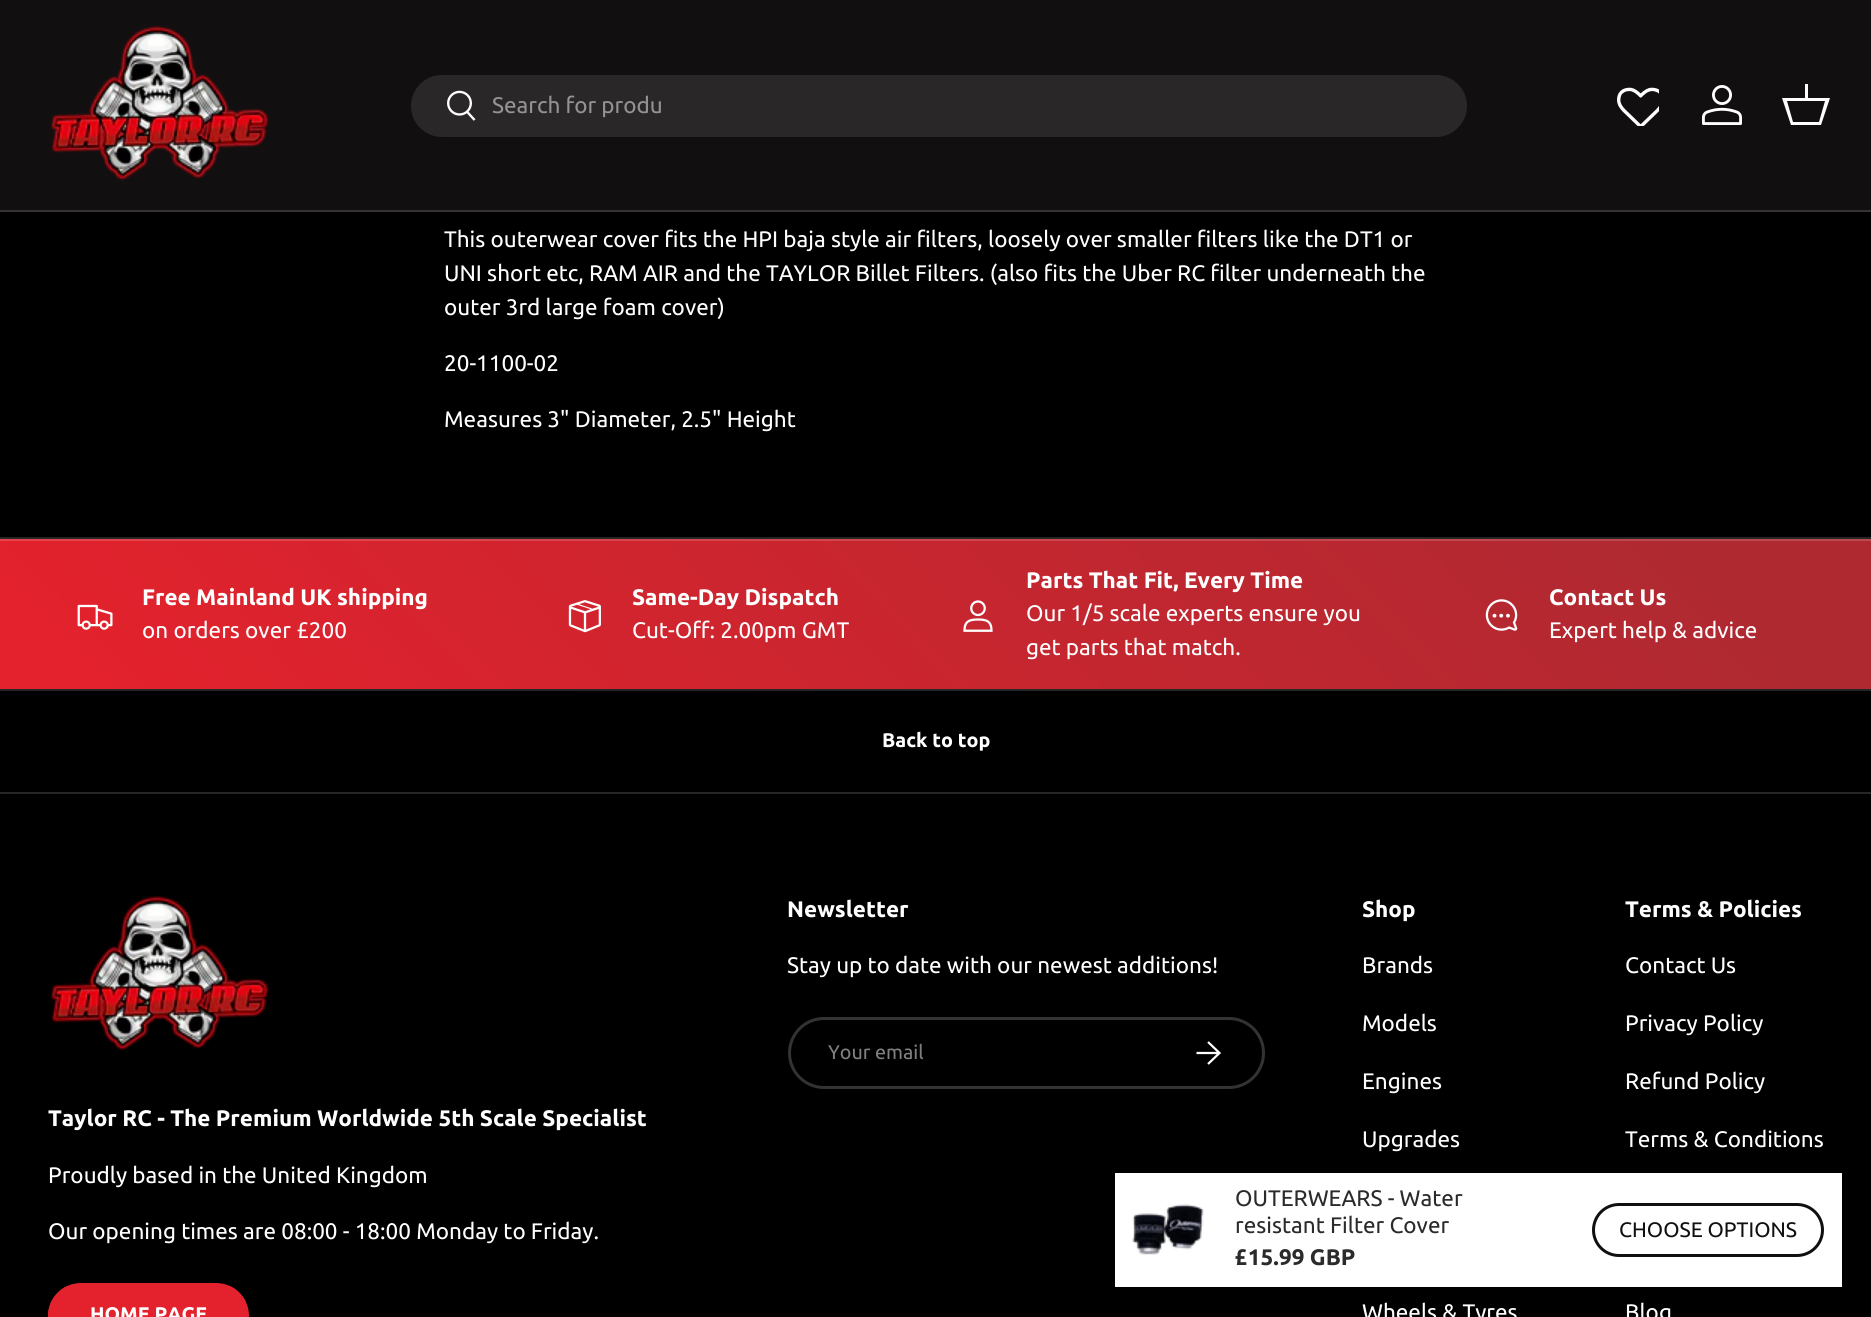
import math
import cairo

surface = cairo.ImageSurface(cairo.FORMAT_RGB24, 1871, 1317)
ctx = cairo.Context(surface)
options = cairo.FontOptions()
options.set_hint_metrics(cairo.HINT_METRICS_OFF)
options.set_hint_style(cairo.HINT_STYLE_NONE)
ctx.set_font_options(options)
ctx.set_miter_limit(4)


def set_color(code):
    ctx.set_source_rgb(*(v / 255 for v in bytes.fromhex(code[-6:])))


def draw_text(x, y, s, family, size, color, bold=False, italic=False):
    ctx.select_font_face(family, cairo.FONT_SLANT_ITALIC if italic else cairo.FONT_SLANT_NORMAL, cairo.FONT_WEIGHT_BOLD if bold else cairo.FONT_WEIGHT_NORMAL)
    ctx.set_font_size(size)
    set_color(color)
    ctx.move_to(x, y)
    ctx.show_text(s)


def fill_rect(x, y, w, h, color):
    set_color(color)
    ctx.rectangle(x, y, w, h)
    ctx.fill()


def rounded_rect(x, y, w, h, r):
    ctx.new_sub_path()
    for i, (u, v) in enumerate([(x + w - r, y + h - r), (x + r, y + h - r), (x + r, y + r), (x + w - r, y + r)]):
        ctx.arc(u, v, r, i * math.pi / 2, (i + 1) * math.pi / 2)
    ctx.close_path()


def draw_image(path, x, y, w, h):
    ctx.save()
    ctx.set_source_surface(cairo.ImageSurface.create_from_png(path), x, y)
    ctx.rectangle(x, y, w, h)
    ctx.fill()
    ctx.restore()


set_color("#000000")
ctx.paint()
fill_rect(0, 0, 1871, 210, "#110f10")
fill_rect(0, 210, 1871, 2, "#353334")
draw_image("assets/img1.png", 50, 25, 219, 156)
set_color("#292728")
rounded_rect(411, 75, 1056, 62, 31)
ctx.fill()
draw_image("assets/img2.png", 447, 90, 29, 31)
draw_text(492, 113, "Search for produ", "Ubuntu", 22.5, "#949394")
draw_image("assets/img3.png", 1617, 87, 42, 39)
draw_image("assets/img4.png", 1702, 85, 40, 40)
set_color("#ffffff")
ctx.new_path()
ctx.move_to(1805, 98)
ctx.line_to(1805, 84)
ctx.line_to(1808, 84)
ctx.line_to(1808, 98)
ctx.line_to(1830, 98)
ctx.line_to(1821, 125)
ctx.line_to(1791, 125)
ctx.line_to(1782, 98)
ctx.close_path()
ctx.move_to(1787, 101)
ctx.line_to(1793, 122)
ctx.line_to(1819, 122)
ctx.line_to(1825, 101)
ctx.close_path()
ctx.fill()
draw_text(444, 247, "This outerwear cover fits the HPI baja style air filters, loosely over smaller filters like the DT1 or", "Ubuntu", 22.5, "#ffffff")
draw_text(444, 281, "UNI short etc, RAM AIR and the TAYLOR Billet Filters. (also fits the Uber RC filter underneath the", "Ubuntu", 22.5, "#ffffff")
draw_text(444, 315, "outer 3rd large foam cover)", "Ubuntu", 22.5, "#ffffff")
draw_text(444, 371, "20-1100-02", "Ubuntu", 22.5, "#ffffff")
draw_text(444, 427, "Measures 3\" Diameter, 2.5\" Height", "Ubuntu", 22.5, "#ffffff")
fill_rect(0, 537, 1871, 2, "#262626")
fill_rect(1115, 1173, 727, 114, "#ffffff")
draw_image("assets/img5.png", 1132, 1204, 72, 51)
draw_text(1235, 1206, "OUTERWEARS - Water", "Ubuntu", 22.5, "#2a2b2a")
draw_text(1235, 1233, "resistant Filter Cover", "Ubuntu", 22.5, "#2a2b2a")
draw_text(1235, 1265, "£15.99 GBP", "Ubuntu", 22.5, "#2a2b2a", bold=True)
rounded_rect(1593.5, 1204.5, 229, 51, 25.5)
set_color("#110f10")
ctx.set_line_width(3)
ctx.stroke()
draw_text(1619, 1237, "CHOOSE OPTIONS", "Ubuntu", 21, "#110f10")
gradient = cairo.LinearGradient(415, 969, 1457, -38)
gradient.add_color_stop_rgba(0.05, 0.906, 0.263, 0.302, 1)
gradient.add_color_stop_rgba(0.9, 0.733, 0.286, 0.314, 1)
ctx.set_source(gradient)
ctx.rectangle(0, 539, 1871, 1)
ctx.fill()
gradient = cairo.LinearGradient(415, 1118, 1457, 111)
gradient.add_color_stop_rgba(0.05, 0.89, 0.133, 0.176, 1)
gradient.add_color_stop_rgba(0.9, 0.686, 0.161, 0.192, 1)
ctx.set_source(gradient)
ctx.rectangle(0, 541, 1871, 148)
ctx.fill()
gradient = cairo.LinearGradient(415, 1118, 1457, 111)
gradient.add_color_stop_rgba(0.05, 0.906, 0.263, 0.302, 1)
gradient.add_color_stop_rgba(0.9, 0.733, 0.286, 0.314, 1)
ctx.set_source(gradient)
ctx.rectangle(0, 540, 1871, 1)
ctx.fill()
draw_image("assets/img6.png", 77, 604, 36, 26)
draw_text(142, 605, "Free Mainland UK shipping", "Ubuntu", 22.5, "#ffffff", bold=True)
draw_text(142, 638, "on orders over £200", "Ubuntu", 22.5, "#ffffff")
draw_image("assets/img7.png", 568, 600, 33, 33)
draw_text(632, 605, "Same-Day Dispatch", "Ubuntu", 22.5, "#ffffff", bold=True)
draw_text(632, 638, "Cut-Off: 2.00pm GMT", "Ubuntu", 22.5, "#ffffff")
draw_image("assets/img8.png", 963, 600, 30, 32)
draw_text(1026, 588, "Parts That Fit, Every Time", "Ubuntu", 22.5, "#ffffff", bold=True)
draw_text(1026, 621, "Our 1/5 scale experts ensure you", "Ubuntu", 22.5, "#ffffff")
draw_text(1026, 655, "get parts that match.", "Ubuntu", 22.5, "#ffffff")
draw_image("assets/img9.png", 1485, 599, 33, 32)
draw_text(1549, 605, "Contact Us", "Ubuntu", 22.5, "#ffffff", bold=True)
draw_text(1549, 638, "Expert help & advice", "Ubuntu", 22.5, "#ffffff")
fill_rect(0, 689, 1871, 2, "#262626")
fill_rect(0, 792, 1871, 2, "#262626")
draw_text(882, 747, "Back to top", "Ubuntu", 19.75, "#ffffff", bold=True)
draw_image("assets/img10.png", 50, 895, 219, 156)
draw_text(48, 1126, "Taylor RC - The Premium Worldwide 5th Scale Specialist", "Ubuntu", 22.5, "#ffffff", bold=True)
draw_text(48, 1183, "Proudly based in the United Kingdom", "Ubuntu", 22.5, "#ffffff")
draw_text(48, 1239, "Our opening times are 08:00 - 18:00 Monday to Friday.", "Ubuntu", 22.5, "#ffffff")
ctx.save()
rounded_rect(48, 1283, 201, 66, 33)
ctx.clip()
gradient = cairo.LinearGradient(-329, 1245, 236, 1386)
gradient.add_color_stop_rgba(0.6, 0.914, 0.318, 0.353, 1)
gradient.add_color_stop_rgba(0.6, 0.89, 0.133, 0.176, 1)
gradient.add_color_stop_rgba(1, 0.89, 0.133, 0.176, 1)
ctx.set_source(gradient)
ctx.rectangle(48, 1286, 198, 31)
ctx.fill()
ctx.restore()
rounded_rect(49.5, 1284.5, 198, 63, 31.5)
set_color("#e3222d")
ctx.stroke()
draw_text(90, 1321, "HOME PAGE", "Ubuntu", 19.75, "#ffffff", bold=True)
draw_text(787, 917, "Newsletter", "Ubuntu", 22.5, "#ffffff", bold=True)
draw_text(787, 973, "Stay up to date with our newest additions!", "Ubuntu", 22.5, "#ffffff")
rounded_rect(789.5, 1018.5, 474, 69, 34.5)
set_color("#333333")
ctx.stroke()
draw_text(828, 1059, "Your email", "Ubuntu", 19.75, "#808080")
ctx.new_path()
ctx.move_to(1196.5, 1053)
ctx.line_to(1218.5, 1053)
ctx.move_to(1208, 1042)
ctx.line_to(1219.5, 1053)
ctx.line_to(1208, 1064)
set_color("#ffffff")
ctx.set_line_width(2.2)
ctx.stroke()
draw_text(1362, 917, "Shop", "Ubuntu", 22.5, "#ffffff", bold=True)
draw_text(1362, 973, "Brands", "Ubuntu", 22.5, "#ffffff")
draw_text(1362, 1031, "Models", "Ubuntu", 22.5, "#ffffff")
draw_text(1362, 1089, "Engines", "Ubuntu", 22.5, "#ffffff")
draw_text(1362, 1147, "Upgrades", "Ubuntu", 22.5, "#ffffff")
draw_text(1362, 1320, "Wheels & Tyres", "Ubuntu", 22.5, "#ffffff")
draw_text(1625, 917, "Terms & Policies", "Ubuntu", 22.5, "#ffffff", bold=True)
draw_text(1625, 973, "Contact Us", "Ubuntu", 22.5, "#ffffff")
draw_text(1625, 1031, "Privacy Policy", "Ubuntu", 22.5, "#ffffff")
draw_text(1625, 1089, "Refund Policy", "Ubuntu", 22.5, "#ffffff")
draw_text(1625, 1147, "Terms & Conditions", "Ubuntu", 22.5, "#ffffff")
draw_text(1625, 1320, "Blog", "Ubuntu", 22.5, "#ffffff")
surface.write_to_png("output.png")
